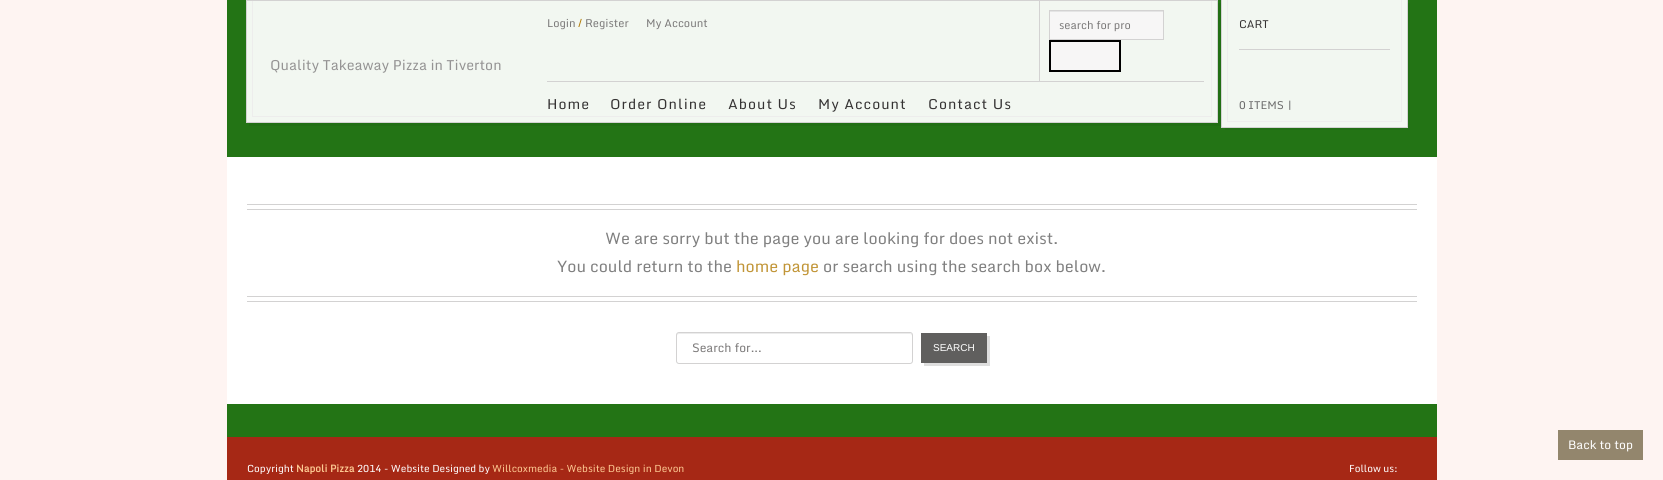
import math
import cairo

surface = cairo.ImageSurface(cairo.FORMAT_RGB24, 1663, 480)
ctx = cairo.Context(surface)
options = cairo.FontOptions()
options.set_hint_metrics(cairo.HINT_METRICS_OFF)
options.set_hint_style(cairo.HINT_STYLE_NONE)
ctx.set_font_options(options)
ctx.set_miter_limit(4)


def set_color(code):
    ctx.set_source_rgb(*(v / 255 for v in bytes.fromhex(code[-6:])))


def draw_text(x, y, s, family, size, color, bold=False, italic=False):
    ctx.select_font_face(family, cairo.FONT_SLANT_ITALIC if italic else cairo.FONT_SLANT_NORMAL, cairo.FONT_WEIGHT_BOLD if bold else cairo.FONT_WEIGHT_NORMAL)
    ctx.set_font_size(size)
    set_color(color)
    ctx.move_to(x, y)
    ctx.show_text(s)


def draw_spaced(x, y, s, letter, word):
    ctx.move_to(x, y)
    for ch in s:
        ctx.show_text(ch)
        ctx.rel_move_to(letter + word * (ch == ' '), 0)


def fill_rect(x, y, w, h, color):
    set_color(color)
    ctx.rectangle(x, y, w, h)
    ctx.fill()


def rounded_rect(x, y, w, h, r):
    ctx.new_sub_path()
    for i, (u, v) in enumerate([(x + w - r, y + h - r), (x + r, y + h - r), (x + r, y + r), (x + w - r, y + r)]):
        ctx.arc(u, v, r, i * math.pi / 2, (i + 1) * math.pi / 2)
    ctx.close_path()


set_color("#fef4f2")
ctx.paint()
fill_rect(227, 157, 1210, 247, "#ffffff")
fill_rect(227, 0, 1210, 157, "#237415")
fill_rect(247, 1, 970, 121, "#f2f7f1")
fill_rect(1211, 0, 1, 117, "#ededec")
fill_rect(252, 116, 960, 1, "#ededec")
fill_rect(252, 0, 1, 117, "#ededec")
set_color("#216e14")
ctx.new_path()
ctx.move_to(249, 123)
ctx.line_to(249, 126)
ctx.line_to(1221, 126)
ctx.line_to(1221, 3)
ctx.line_to(1218, 3)
ctx.line_to(1218, 123)
ctx.close_path()
ctx.fill()
ctx.rectangle(246.5, 0.5, 971, 122)
set_color("#d3d2d2")
ctx.set_line_width(1)
ctx.stroke()
draw_text(270, 70, "Quality Takeaway Pizza in Tiverton", "Monda", 14, "#959494")
draw_text(547, 27, "Login", "Monda", 11, "#7b7979")
draw_text(578, 27, "/", "Monda", 11, "#b27b06")
draw_text(585, 27, "Register", "Monda", 11, "#7b7979")
draw_text(646, 27, "My Account", "Monda", 11, "#7b7979")
fill_rect(1039, 1, 1, 80, "#d3d2d2")
fill_rect(1050, 12, 113, 27, "#f7f6f6")
fill_rect(1050, 11, 113, 1, "#e4e4e4")
ctx.rectangle(1049.5, 10.5, 114, 29)
set_color("#d3d2d2")
ctx.stroke()
draw_text(1059, 29, "search for pro", "Monda", 11, "#7b7979")
set_color("#f7f6f6")
ctx.rectangle(1050, 41, 70, 30)
ctx.fill_preserve()
set_color("#000000")
ctx.set_line_width(2)
ctx.stroke()
fill_rect(547, 81, 657, 1, "#d3d2d2")
ctx.set_font_size(14)
set_color("#353333")
draw_spaced(547, 109, "Home", 1, 0)
draw_spaced(610, 109, "Order Online", 1, 0)
draw_spaced(728, 109, "About Us", 1, 0)
draw_spaced(818, 109, "My Account", 1, 0)
draw_spaced(928, 109, "Contact Us", 1, 0)
set_color("#216e14")
ctx.new_path()
ctx.move_to(1225, 127)
ctx.line_to(1225, 130)
ctx.line_to(1410, 130)
ctx.line_to(1410, 3)
ctx.line_to(1407, 3)
ctx.line_to(1407, 127)
ctx.close_path()
ctx.fill()
fill_rect(1222, 0, 185, 127, "#f2f7f1")
fill_rect(1401, 0, 1, 122, "#ededec")
fill_rect(1227, 121, 175, 1, "#ededec")
fill_rect(1227, 0, 1, 122, "#ededec")
fill_rect(1239, 49, 151, 1, "#d3d2d2")
ctx.rectangle(1221.5, -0.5, 186, 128)
ctx.set_line_width(1)
ctx.stroke()
draw_text(1239, 28, "CART", "Monda", 11, "#353333")
draw_text(1239, 109, "0", "Monda", 11, "#6c6c6c")
draw_text(1248, 109, "ITEMS", "Monda", 11, "#6c6c6c")
draw_text(1288, 109, "|", "Monda", 11, "#6c6c6c")
fill_rect(247, 204, 1170, 1, "#d3d2d2")
fill_rect(247, 209, 1170, 1, "#d3d2d2")
fill_rect(247, 296, 1170, 1, "#d3d2d2")
draw_text(605, 244, "We are sorry but the page you are looking for does not exist.", "Monda", 16, "#808080")
draw_text(557, 272, "You could return to the", "Monda", 16, "#808080")
draw_text(736, 272, "home page", "Monda", 16, "#c19537")
draw_text(823, 272, "or search using the search box below.", "Monda", 16, "#808080")
fill_rect(247, 301, 1170, 1, "#d3d2d2")
set_color("#ececec")
ctx.new_path()
ctx.move_to(679, 334)
ctx.line_to(910, 334)
ctx.curve_to(911, 334, 912, 335, 912, 336)
ctx.line_to(912, 334)
ctx.line_to(910, 333)
ctx.line_to(679, 333)
ctx.curve_to(677, 333, 677, 335, 677, 336)
ctx.curve_to(677, 335, 678, 334, 679, 334)
ctx.close_path()
ctx.fill()
rounded_rect(676.5, 332.5, 236, 31, 2.5)
set_color("#d3d2d2")
ctx.stroke()
draw_text(692, 352, "Search for...", "Monda", 12, "#7b7979")
set_color("#dedede")
ctx.new_path()
ctx.move_to(924, 363)
ctx.line_to(924, 366)
ctx.line_to(990, 366)
ctx.line_to(990, 336)
ctx.line_to(987, 336)
ctx.line_to(987, 363)
ctx.close_path()
ctx.fill()
fill_rect(921, 333, 66, 30, "#605f5e")
draw_text(933, 351, "SEARCH", "Liberation Sans", 10, "#ffffff")
fill_rect(227, 404, 1210, 33, "#237415")
fill_rect(1558, 430, 85, 30, "#93866d")
draw_text(1568, 449, "Back to top", "Monda", 12, "#ffffff")
fill_rect(227, 437, 1210, 43, "#a62815")
draw_text(247, 472, "Copyright", "Monda", 10, "#ffffff")
draw_text(296, 472, "Napoli Pizza", "Monda", 10, "#fdc992", bold=True)
draw_text(357, 472, "2014 - Website Designed by", "Monda", 10, "#ffffff")
draw_text(492, 472, "Willcoxmedia - Website Design in Devon", "Monda", 10, "#fdc992")
draw_text(1349, 472, "Follow us:", "Monda", 10, "#ffffff")
surface.write_to_png("output.png")
